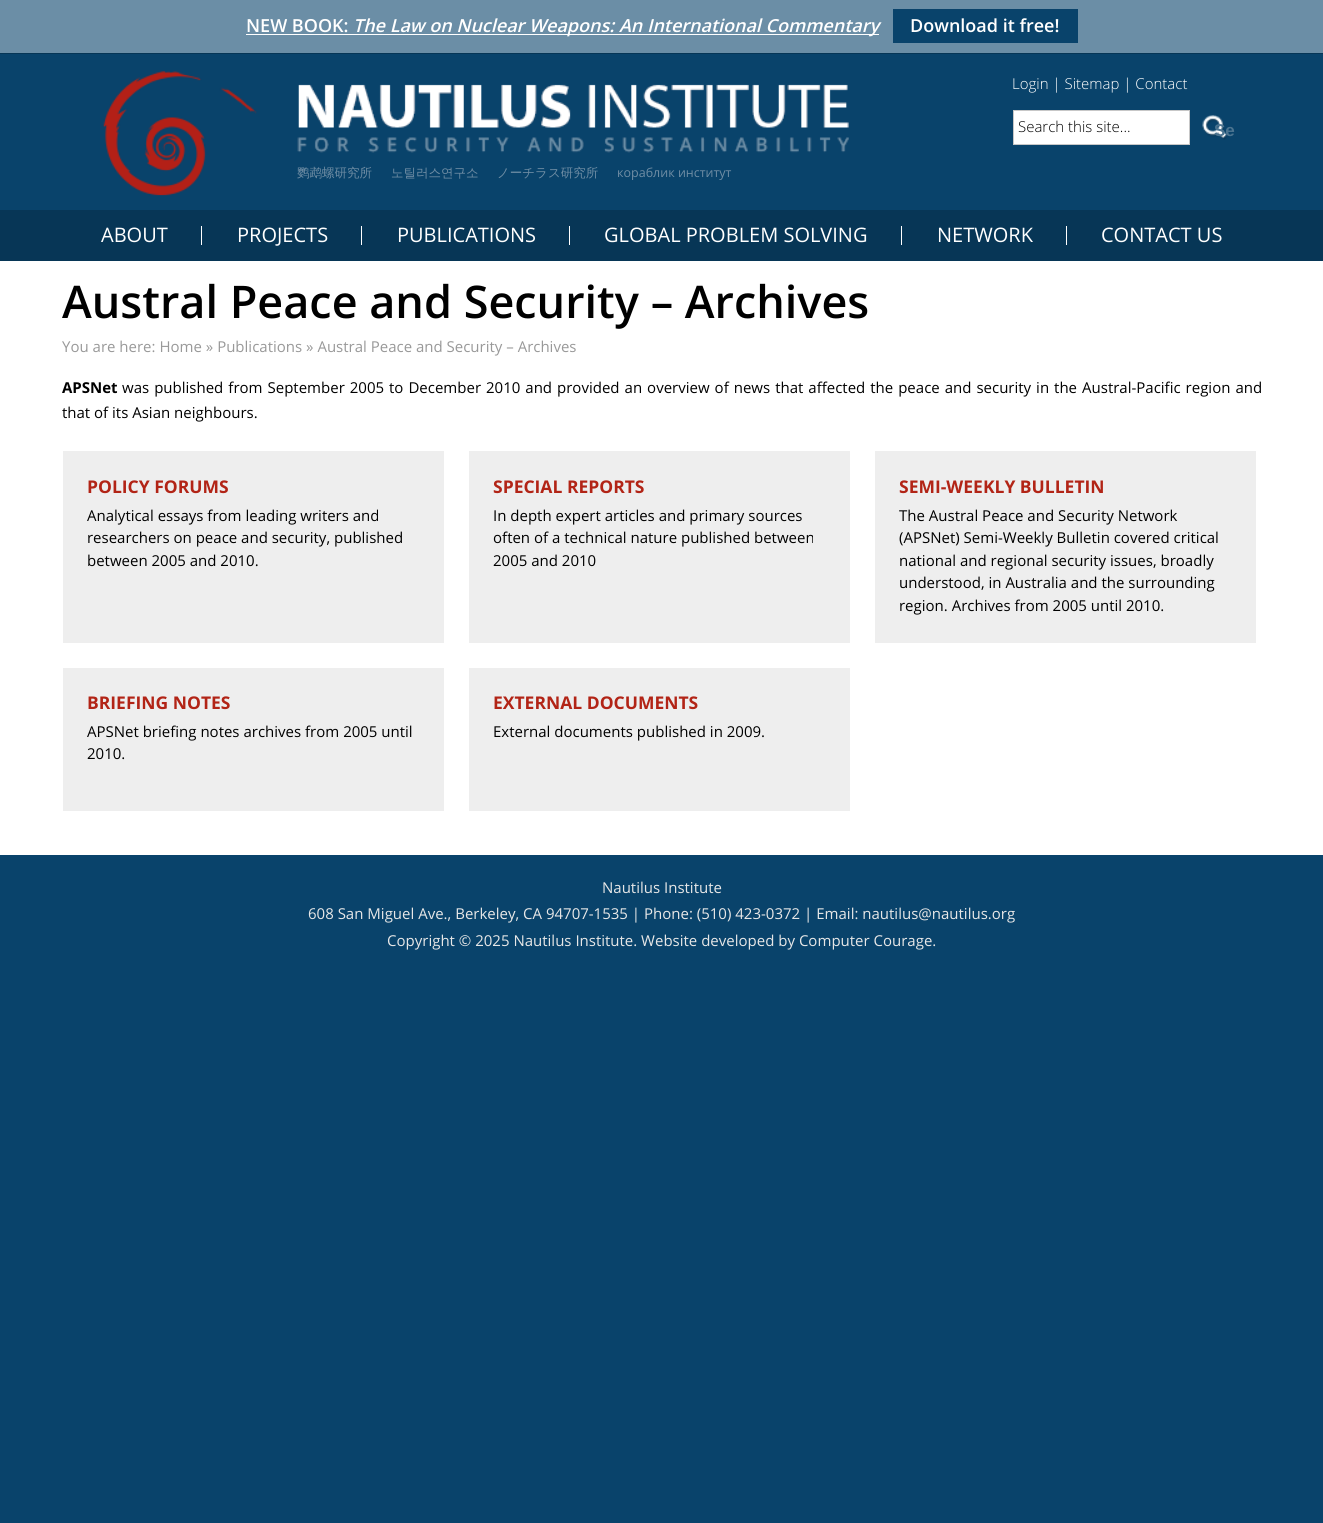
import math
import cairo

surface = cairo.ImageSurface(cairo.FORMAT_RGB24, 1323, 1523)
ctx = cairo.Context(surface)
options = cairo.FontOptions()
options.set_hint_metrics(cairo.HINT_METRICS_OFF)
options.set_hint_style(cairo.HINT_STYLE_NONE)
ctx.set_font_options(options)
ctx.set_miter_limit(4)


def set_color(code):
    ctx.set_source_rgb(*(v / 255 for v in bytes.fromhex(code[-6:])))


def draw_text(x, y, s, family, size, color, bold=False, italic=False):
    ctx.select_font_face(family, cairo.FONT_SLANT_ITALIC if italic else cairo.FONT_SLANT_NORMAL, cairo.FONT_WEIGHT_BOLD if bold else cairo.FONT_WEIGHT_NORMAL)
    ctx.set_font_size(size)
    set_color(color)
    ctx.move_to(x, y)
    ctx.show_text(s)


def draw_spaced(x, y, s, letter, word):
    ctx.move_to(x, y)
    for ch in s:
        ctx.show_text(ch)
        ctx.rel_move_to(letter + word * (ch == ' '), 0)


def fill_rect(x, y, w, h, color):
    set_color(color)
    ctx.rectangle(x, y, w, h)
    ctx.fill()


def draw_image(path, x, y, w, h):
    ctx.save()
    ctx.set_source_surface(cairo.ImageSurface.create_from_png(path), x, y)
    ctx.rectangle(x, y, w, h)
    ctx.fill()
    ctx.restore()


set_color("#09436b")
ctx.paint()
fill_rect(0, 0, 1323, 53, "#6b8ea6")
fill_rect(0, 53, 1323, 1, "#073656")
draw_text(246, 32, "NEW BOOK:", "Open Sans SemiBold", 18, "#ffffff")
fill_rect(246, 34, 633, 1, "#ffffff")
draw_text(353, 32, "The Law on Nuclear Weapons: An International Commentary", "Open Sans SemiBold", 18, "#ffffff", italic=True)
fill_rect(893, 9, 185, 34, "#09436b")
draw_text(910, 32, "Download it free!", "Open Sans SemiBold", 18, "#ffffff")
draw_text(1012, 89, "Login | Sitemap | Contact", "Open Sans Light", 15, "#ffffff")
ctx.rectangle(1013.5, 110.5, 176, 34)
ctx.fill_preserve()
set_color("#c7c7c7")
ctx.set_line_width(1)
ctx.stroke()
draw_text(1018, 132, "Search this site...", "Open Sans Light", 15, "#000000")
draw_image("assets/img1.png", 1202, 115, 25, 25)
draw_text(1214, 136, "Se", "Liberation Sans", 17, "#4b7490", bold=True)
draw_image("assets/img2.png", 103, 71, 746, 125)
draw_text(297, 177, "鹦鹉螺研究所", "WenQuanYi Zen Hei Medium", 12.5, "#6f8da4")
draw_text(391, 177, "노틸러스연구소", "WenQuanYi Zen Hei Medium", 12.5, "#6f8da4")
draw_text(497, 177, "ノーチラス研究所", "WenQuanYi Zen Hei Medium", 12.5, "#6f8da4")
draw_text(617, 177, "кораблик институт", "Open Sans", 12.5, "#6f8da4")
fill_rect(0, 210, 1323, 51, "#073656")
fill_rect(201, 226, 1, 19, "#ffffff")
draw_text(101, 242, "ABOUT", "Open Sans", 20, "#ffffff")
fill_rect(361, 226, 1, 19, "#ffffff")
draw_text(237, 242, "PROJECTS", "Open Sans", 20, "#ffffff")
fill_rect(569, 226, 1, 19, "#ffffff")
draw_text(397, 242, "PUBLICATIONS", "Open Sans", 20, "#ffffff")
fill_rect(901, 226, 1, 19, "#ffffff")
draw_text(604, 242, "GLOBAL PROBLEM SOLVING", "Open Sans", 20, "#ffffff")
fill_rect(1066, 226, 1, 19, "#ffffff")
draw_text(937, 242, "NETWORK", "Open Sans", 20, "#ffffff")
draw_text(1101, 242, "CONTACT US", "Open Sans", 20, "#ffffff")
fill_rect(0, 261, 1323, 594, "#ffffff")
draw_text(62, 318, "Austral Peace and Security – Archives", "Open Sans SemiBold", 45, "#000000")
draw_text(62, 352, "You are here: Home » Publications » Austral Peace and Security – Archives", "Open Sans", 15, "#999999")
draw_text(62, 393, "APSNet", "Open Sans", 15, "#000000", bold=True)
ctx.select_font_face("Open Sans")
draw_spaced(122, 393, "was published from September 2005 to December 2010 and provided an overview of news that affected the peace and security in the Austral-Pacific region and", 0, 1.1)
draw_text(62, 418, "that of its Asian neighbours.", "Open Sans", 15, "#000000")
fill_rect(63, 451, 381, 192, "#eeeeee")
draw_text(87, 493, "POLICY FORUMS", "Open Sans", 17.5, "#b22416", bold=True)
draw_text(87, 521, "Analytical essays from leading writers and", "Open Sans", 15, "#000000")
draw_text(87, 543, "researchers on peace and security, published", "Open Sans", 15, "#000000")
draw_text(87, 566, "between 2005 and 2010.", "Open Sans", 15, "#000000")
fill_rect(469, 451, 381, 192, "#eeeeee")
draw_text(493, 493, "SPECIAL REPORTS", "Open Sans", 17.5, "#b22416", bold=True)
draw_text(493, 521, "In depth expert articles and primary sources", "Open Sans", 15, "#000000")
draw_text(493, 543, "often of a technical nature published between", "Open Sans", 15, "#000000")
draw_text(493, 566, "2005 and 2010", "Open Sans", 15, "#000000")
fill_rect(875, 451, 381, 192, "#eeeeee")
draw_text(899, 493, "SEMI-WEEKLY BULLETIN", "Open Sans", 17.5, "#b22416", bold=True)
draw_text(899, 521, "The Austral Peace and Security Network", "Open Sans", 15, "#000000")
draw_text(899, 543, "(APSNet) Semi-Weekly Bulletin covered critical", "Open Sans", 15, "#000000")
draw_text(899, 566, "national and regional security issues, broadly", "Open Sans", 15, "#000000")
draw_text(899, 588, "understood, in Australia and the surrounding", "Open Sans", 15, "#000000")
draw_text(899, 611, "region. Archives from 2005 until 2010.", "Open Sans", 15, "#000000")
fill_rect(63, 668, 381, 143, "#eeeeee")
draw_text(87, 709, "BRIEFING NOTES", "Open Sans", 17.5, "#b22416", bold=True)
draw_text(87, 737, "APSNet briefing notes archives from 2005 until", "Open Sans", 15, "#000000")
draw_text(87, 759, "2010.", "Open Sans", 15, "#000000")
fill_rect(469, 668, 381, 143, "#eeeeee")
draw_text(493, 709, "EXTERNAL DOCUMENTS", "Open Sans", 17.5, "#b22416", bold=True)
draw_text(493, 737, "External documents published in 2009.", "Open Sans", 15, "#000000")
draw_text(602, 893, "Nautilus Institute", "Open Sans", 15, "#e7e7e7")
draw_text(308, 919, "608 San Miguel Ave., Berkeley, CA 94707-1535 | Phone: (510) 423-0372 | Email: nautilus@nautilus.org", "Open Sans", 15, "#e7e7e7")
draw_text(387, 946, "Copyright © 2025 Nautilus Institute. Website developed by Computer Courage.", "Open Sans", 15, "#e7e7e7")
surface.write_to_png("output.png")
